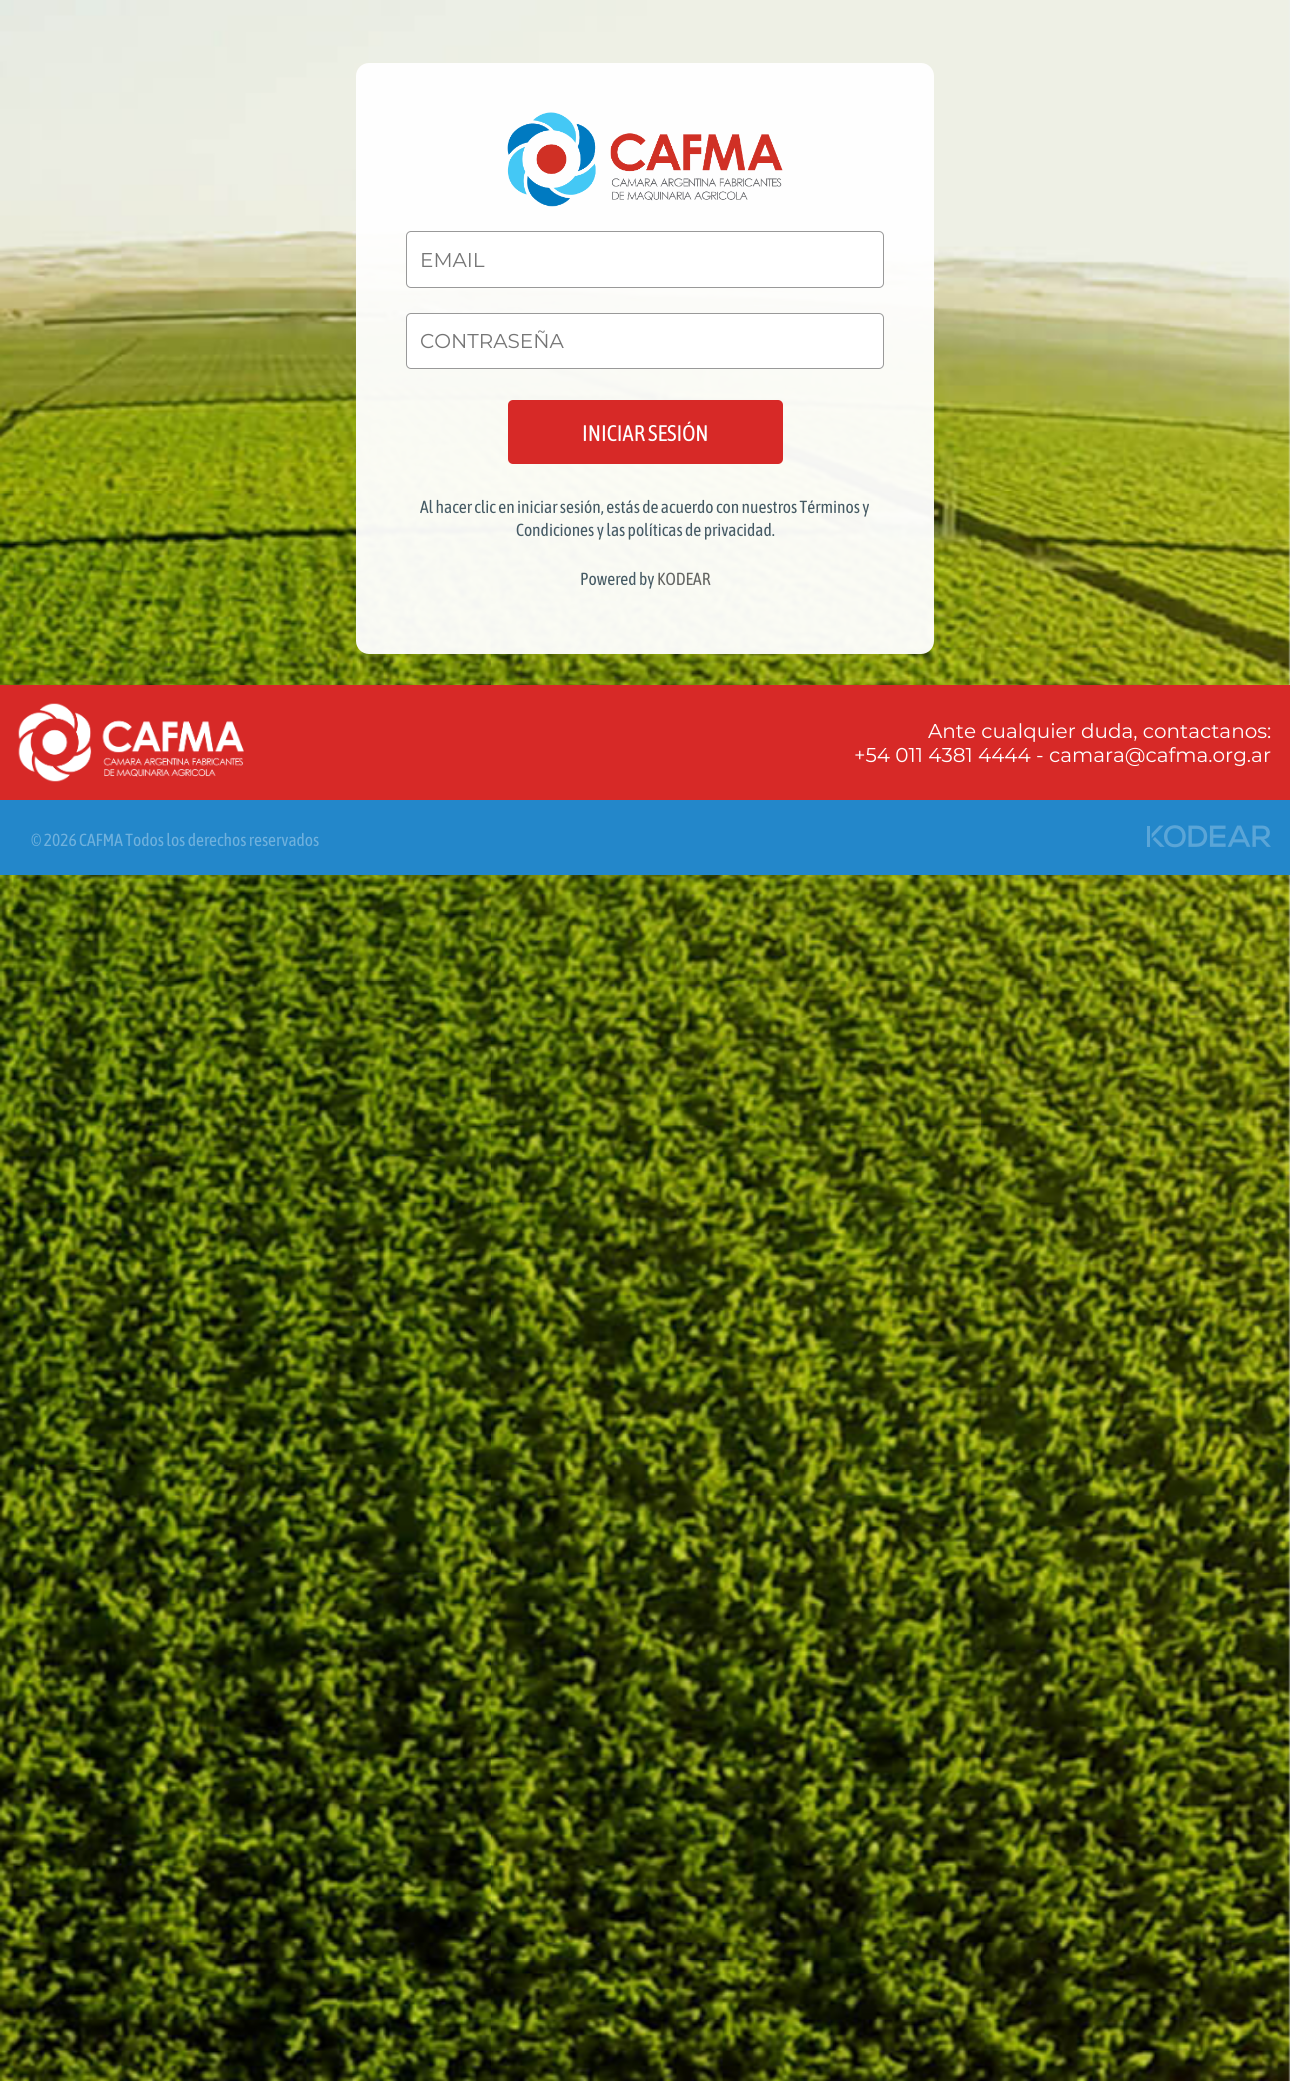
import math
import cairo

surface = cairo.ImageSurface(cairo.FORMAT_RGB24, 1290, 2081)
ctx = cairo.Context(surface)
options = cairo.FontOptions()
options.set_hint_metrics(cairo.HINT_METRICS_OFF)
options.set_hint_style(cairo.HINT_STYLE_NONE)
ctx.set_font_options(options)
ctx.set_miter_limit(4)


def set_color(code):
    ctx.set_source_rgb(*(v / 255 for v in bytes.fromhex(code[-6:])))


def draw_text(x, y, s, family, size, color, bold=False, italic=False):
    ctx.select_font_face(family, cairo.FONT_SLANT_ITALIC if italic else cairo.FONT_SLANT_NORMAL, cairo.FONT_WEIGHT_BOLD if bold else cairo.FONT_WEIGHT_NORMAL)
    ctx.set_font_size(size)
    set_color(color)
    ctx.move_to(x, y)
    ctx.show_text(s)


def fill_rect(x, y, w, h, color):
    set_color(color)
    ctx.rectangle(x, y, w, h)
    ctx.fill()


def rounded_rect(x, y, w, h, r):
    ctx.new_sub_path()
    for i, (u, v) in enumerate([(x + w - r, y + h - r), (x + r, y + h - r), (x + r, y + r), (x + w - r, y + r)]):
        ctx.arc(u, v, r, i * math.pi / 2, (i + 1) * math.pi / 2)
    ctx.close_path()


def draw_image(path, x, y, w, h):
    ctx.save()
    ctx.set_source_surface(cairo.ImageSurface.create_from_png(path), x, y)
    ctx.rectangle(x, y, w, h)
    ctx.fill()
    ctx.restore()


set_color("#eceff1")
ctx.paint()
draw_image("assets/img1.png", 0, 0, 1290, 2081)
ctx.set_source_rgba(1, 1, 1, 0.95)
rounded_rect(356, 63, 578, 591, 13)
ctx.fill()
draw_image("assets/img2.png", 507, 112, 276, 95)
set_color("#ffffff")
rounded_rect(406.5, 231.5, 477, 56, 4.5)
ctx.fill_preserve()
set_color("#999999")
ctx.set_line_width(1)
ctx.stroke()
draw_text(420, 267, "EMAIL", "Montserrat", 20, "#757575")
set_color("#ffffff")
rounded_rect(406.5, 313.5, 477, 55, 4.5)
ctx.fill_preserve()
set_color("#999999")
ctx.stroke()
draw_text(420, 348, "CONTRASEÑA", "Montserrat", 20, "#757575")
set_color("#d72927")
rounded_rect(508, 400, 275, 64, 5)
ctx.fill()
draw_text(582, 441, "INICIAR SESIÓN", "Asap Condensed", 22.5, "#ffffff")
draw_text(420, 513, "Al hacer clic en iniciar sesión, estás de acuerdo con nuestros Términos y", "Asap Condensed", 17.5, "#455a64")
draw_text(516, 536, "Condiciones y las políticas de privacidad.", "Asap Condensed", 17.5, "#455a64")
draw_text(580, 585, "Powered by", "Asap Condensed", 17.5, "#455a64")
draw_text(657, 585, "KODEAR", "Asap Condensed", 17.5, "#636461")
fill_rect(0, 685, 1290, 115, "#d72927")
draw_image("assets/img3.png", 18, 703, 226, 79)
draw_text(928, 738, "Ante cualquier duda, contactanos:", "Montserrat", 20, "#ffffff")
draw_text(854, 762, "+54 011 4381 4444 - camara@cafma.org.ar", "Montserrat", 20, "#ffffff")
fill_rect(0, 800, 1290, 75, "#2387ca")
draw_text(31, 846, "© 2026 CAFMA Todos los derechos reservados", "Asap Condensed", 17.5, "#70b1dd")
draw_image("assets/img4.png", 1147, 825, 124, 23)
surface.write_to_png("output.png")
